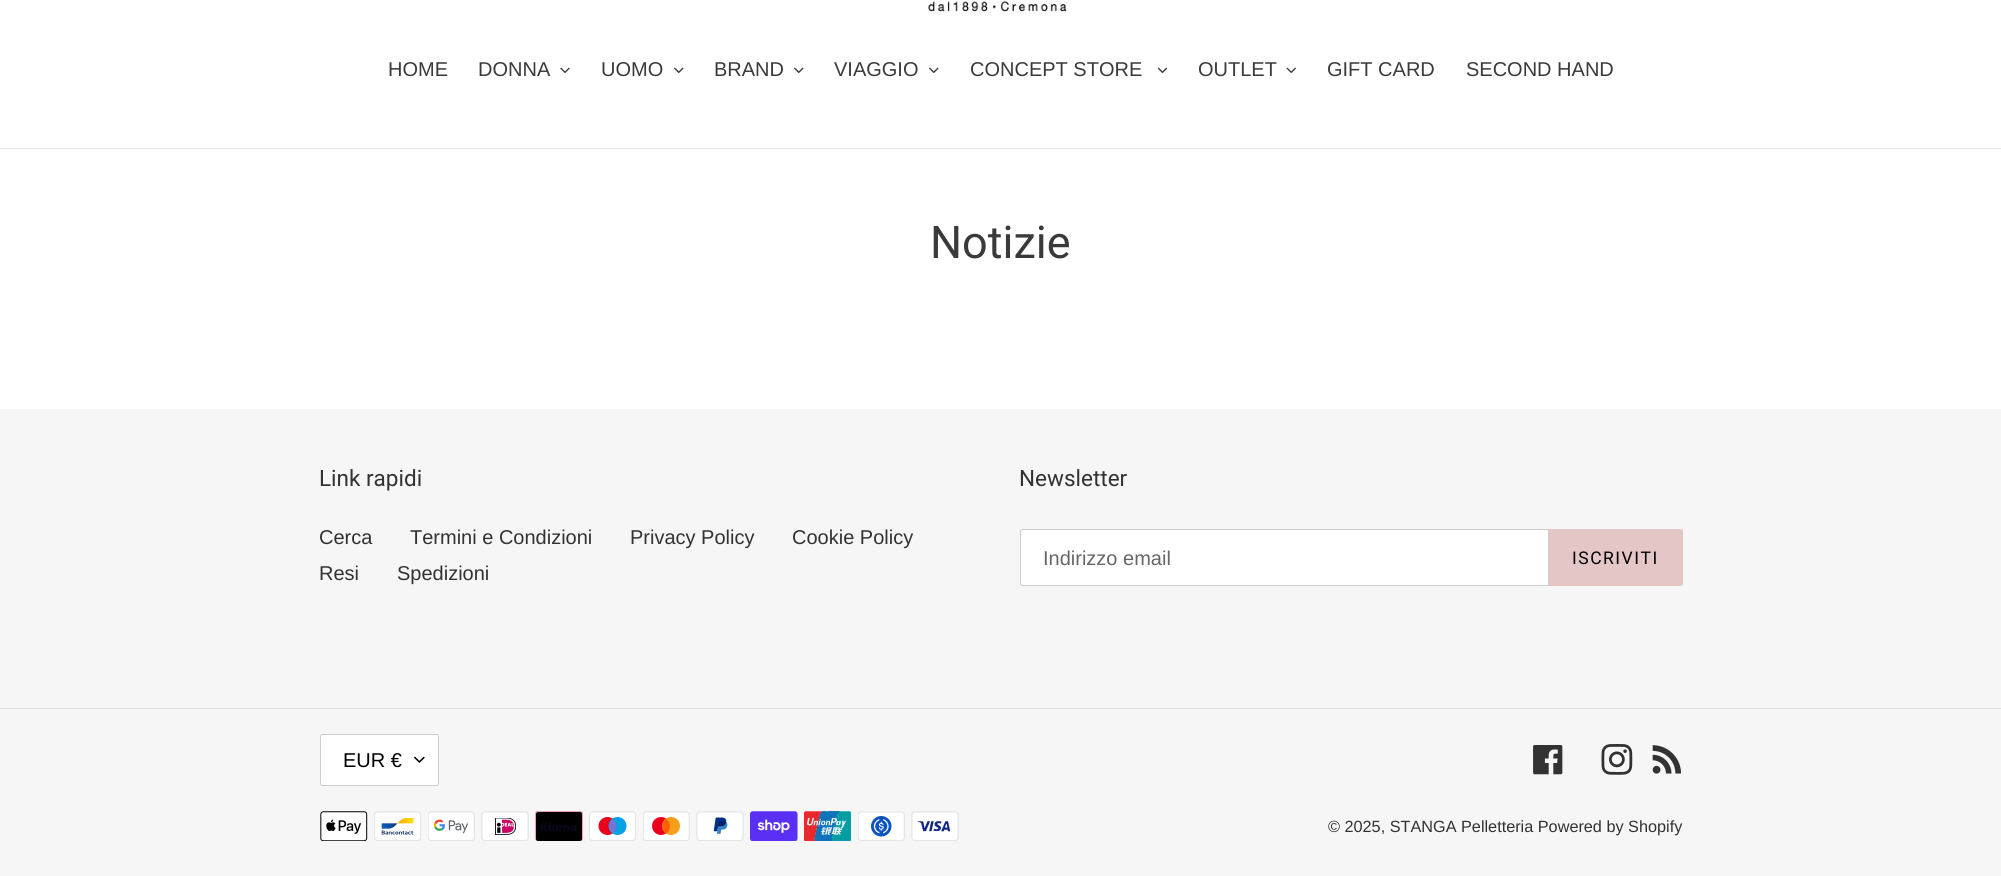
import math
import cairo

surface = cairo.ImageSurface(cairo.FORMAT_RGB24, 2001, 876)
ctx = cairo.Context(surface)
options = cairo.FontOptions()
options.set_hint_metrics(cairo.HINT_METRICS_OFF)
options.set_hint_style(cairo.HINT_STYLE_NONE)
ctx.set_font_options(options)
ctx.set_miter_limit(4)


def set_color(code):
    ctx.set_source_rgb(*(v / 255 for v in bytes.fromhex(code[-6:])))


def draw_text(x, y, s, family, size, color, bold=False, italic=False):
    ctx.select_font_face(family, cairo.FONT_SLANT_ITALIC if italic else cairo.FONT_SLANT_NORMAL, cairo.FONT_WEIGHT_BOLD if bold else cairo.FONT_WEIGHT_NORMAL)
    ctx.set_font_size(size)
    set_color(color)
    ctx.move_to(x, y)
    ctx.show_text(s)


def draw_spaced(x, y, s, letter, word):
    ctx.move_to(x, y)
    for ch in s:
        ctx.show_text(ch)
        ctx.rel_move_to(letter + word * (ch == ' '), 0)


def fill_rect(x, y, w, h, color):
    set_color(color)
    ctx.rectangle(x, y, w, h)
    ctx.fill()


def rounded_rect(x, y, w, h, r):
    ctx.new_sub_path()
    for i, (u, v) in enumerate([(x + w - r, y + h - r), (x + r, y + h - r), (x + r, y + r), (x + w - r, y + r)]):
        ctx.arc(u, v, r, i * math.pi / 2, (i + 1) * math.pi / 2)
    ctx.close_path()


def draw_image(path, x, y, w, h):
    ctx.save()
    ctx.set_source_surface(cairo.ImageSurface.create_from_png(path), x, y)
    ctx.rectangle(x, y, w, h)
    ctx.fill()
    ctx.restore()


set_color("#ffffff")
ctx.paint()
draw_image("assets/img1.png", 928, 1, 139, 11)
fill_rect(0, 148, 2001, 1, "#ebebeb")
draw_text(388, 76, "HOME", "Liberation Sans", 20, "#3a3a3a")
draw_text(478, 76, "DONNA", "Liberation Sans", 20, "#3a3a3a")
draw_image("assets/img2.png", 560, 67, 10, 6)
draw_text(601, 76, "UOMO", "Liberation Sans", 20, "#3a3a3a")
draw_image("assets/img3.png", 674, 67, 10, 6)
draw_text(714, 76, "BRAND", "Liberation Sans", 20, "#3a3a3a")
draw_image("assets/img3.png", 794, 67, 10, 6)
draw_text(834, 76, "VIAGGIO", "Liberation Sans", 20, "#3a3a3a")
draw_image("assets/img3.png", 929, 67, 10, 6)
draw_text(970, 76, "CONCEPT STORE", "Liberation Sans", 20, "#3a3a3a")
draw_image("assets/img4.png", 1158, 67, 10, 6)
draw_text(1198, 76, "OUTLET", "Liberation Sans", 20, "#3a3a3a")
draw_image("assets/img5.png", 1286, 67, 10, 6)
draw_text(1327, 76, "GIFT CARD", "Liberation Sans", 20, "#3a3a3a")
draw_text(1466, 76, "SECOND HAND", "Liberation Sans", 20, "#3a3a3a")
draw_text(930, 258, "Notizie", "Roboto", 45, "#3a3a3a")
fill_rect(0, 409, 2001, 467, "#f6f6f6")
draw_text(319, 486, "Link rapidi", "Roboto", 22.5, "#333232")
draw_text(319, 544, "Cerca", "Liberation Sans", 20, "#333232")
draw_text(410, 544, "Termini e Condizioni", "Liberation Sans", 20, "#333232")
draw_text(630, 544, "Privacy Policy", "Liberation Sans", 20, "#333232")
draw_text(792, 544, "Cookie Policy", "Liberation Sans", 20, "#333232")
draw_text(319, 580, "Resi", "Liberation Sans", 20, "#333232")
draw_text(397, 580, "Spedizioni", "Liberation Sans", 20, "#333232")
draw_text(1019, 486, "Newsletter", "Roboto", 22.5, "#333232")
set_color("#ffffff")
ctx.new_path()
ctx.move_to(1022.5, 529.5)
ctx.line_to(1548.5, 529.5)
ctx.line_to(1548.5, 585.5)
ctx.line_to(1022.5, 585.5)
ctx.curve_to(1021.5, 585.5, 1020.5, 584.5, 1020.5, 583.5)
ctx.line_to(1020.5, 531.5)
ctx.curve_to(1020.5, 530.5, 1021.5, 529.5, 1022.5, 529.5)
ctx.close_path()
ctx.fill_preserve()
set_color("#cccccc")
ctx.set_line_width(1)
ctx.stroke()
draw_text(1043, 565, "Indirizzo email", "Liberation Sans", 20, "#666666")
set_color("#e5c6c6")
ctx.new_path()
ctx.move_to(1549, 529)
ctx.line_to(1680.5, 529)
ctx.curve_to(1682, 529, 1683, 530, 1683, 531.5)
ctx.line_to(1683, 583.5)
ctx.curve_to(1683, 585, 1682, 586, 1680.5, 586)
ctx.line_to(1549, 586)
ctx.close_path()
ctx.fill()
ctx.select_font_face("Roboto")
ctx.set_font_size(17.5)
set_color("#000000")
draw_spaced(1572, 564, "ISCRIVITI", 1.5, 0)
fill_rect(0, 708, 2001, 1, "#dddddd")
set_color("#ffffff")
rounded_rect(320, 734, 119, 52, 2.5)
ctx.fill()
draw_image("assets/img6.png", 414, 756, 11, 7)
rounded_rect(320.5, 734.5, 118, 51, 2)
set_color("#cccccc")
ctx.stroke()
draw_text(343, 767, "EUR €", "Liberation Sans", 20, "#000000")
draw_image("assets/img7.png", 1533, 745, 30, 30)
draw_image("assets/img8.png", 1601, 744, 32, 31)
draw_image("assets/img9.png", 1652, 745, 29, 29)
draw_image("assets/img10.png", 320, 811, 48, 30)
draw_image("assets/img11.png", 374, 811, 47, 30)
draw_image("assets/img12.png", 428, 811, 47, 30)
draw_image("assets/img13.png", 481, 811, 48, 30)
draw_image("assets/img14.png", 535, 811, 48, 30)
draw_image("assets/img15.png", 589, 811, 47, 30)
draw_image("assets/img16.png", 643, 811, 47, 30)
draw_image("assets/img17.png", 696, 811, 48, 30)
draw_image("assets/img18.png", 750, 811, 48, 30)
draw_image("assets/img19.png", 804, 811, 47, 30)
draw_image("assets/img20.png", 858, 811, 47, 30)
draw_image("assets/img21.png", 911, 811, 48, 30)
draw_text(1328, 832, "© 2025, STANGA Pelletteria Powered by Shopify", "Liberation Sans", 16.25, "#333232")
surface.write_to_png("output.png")
